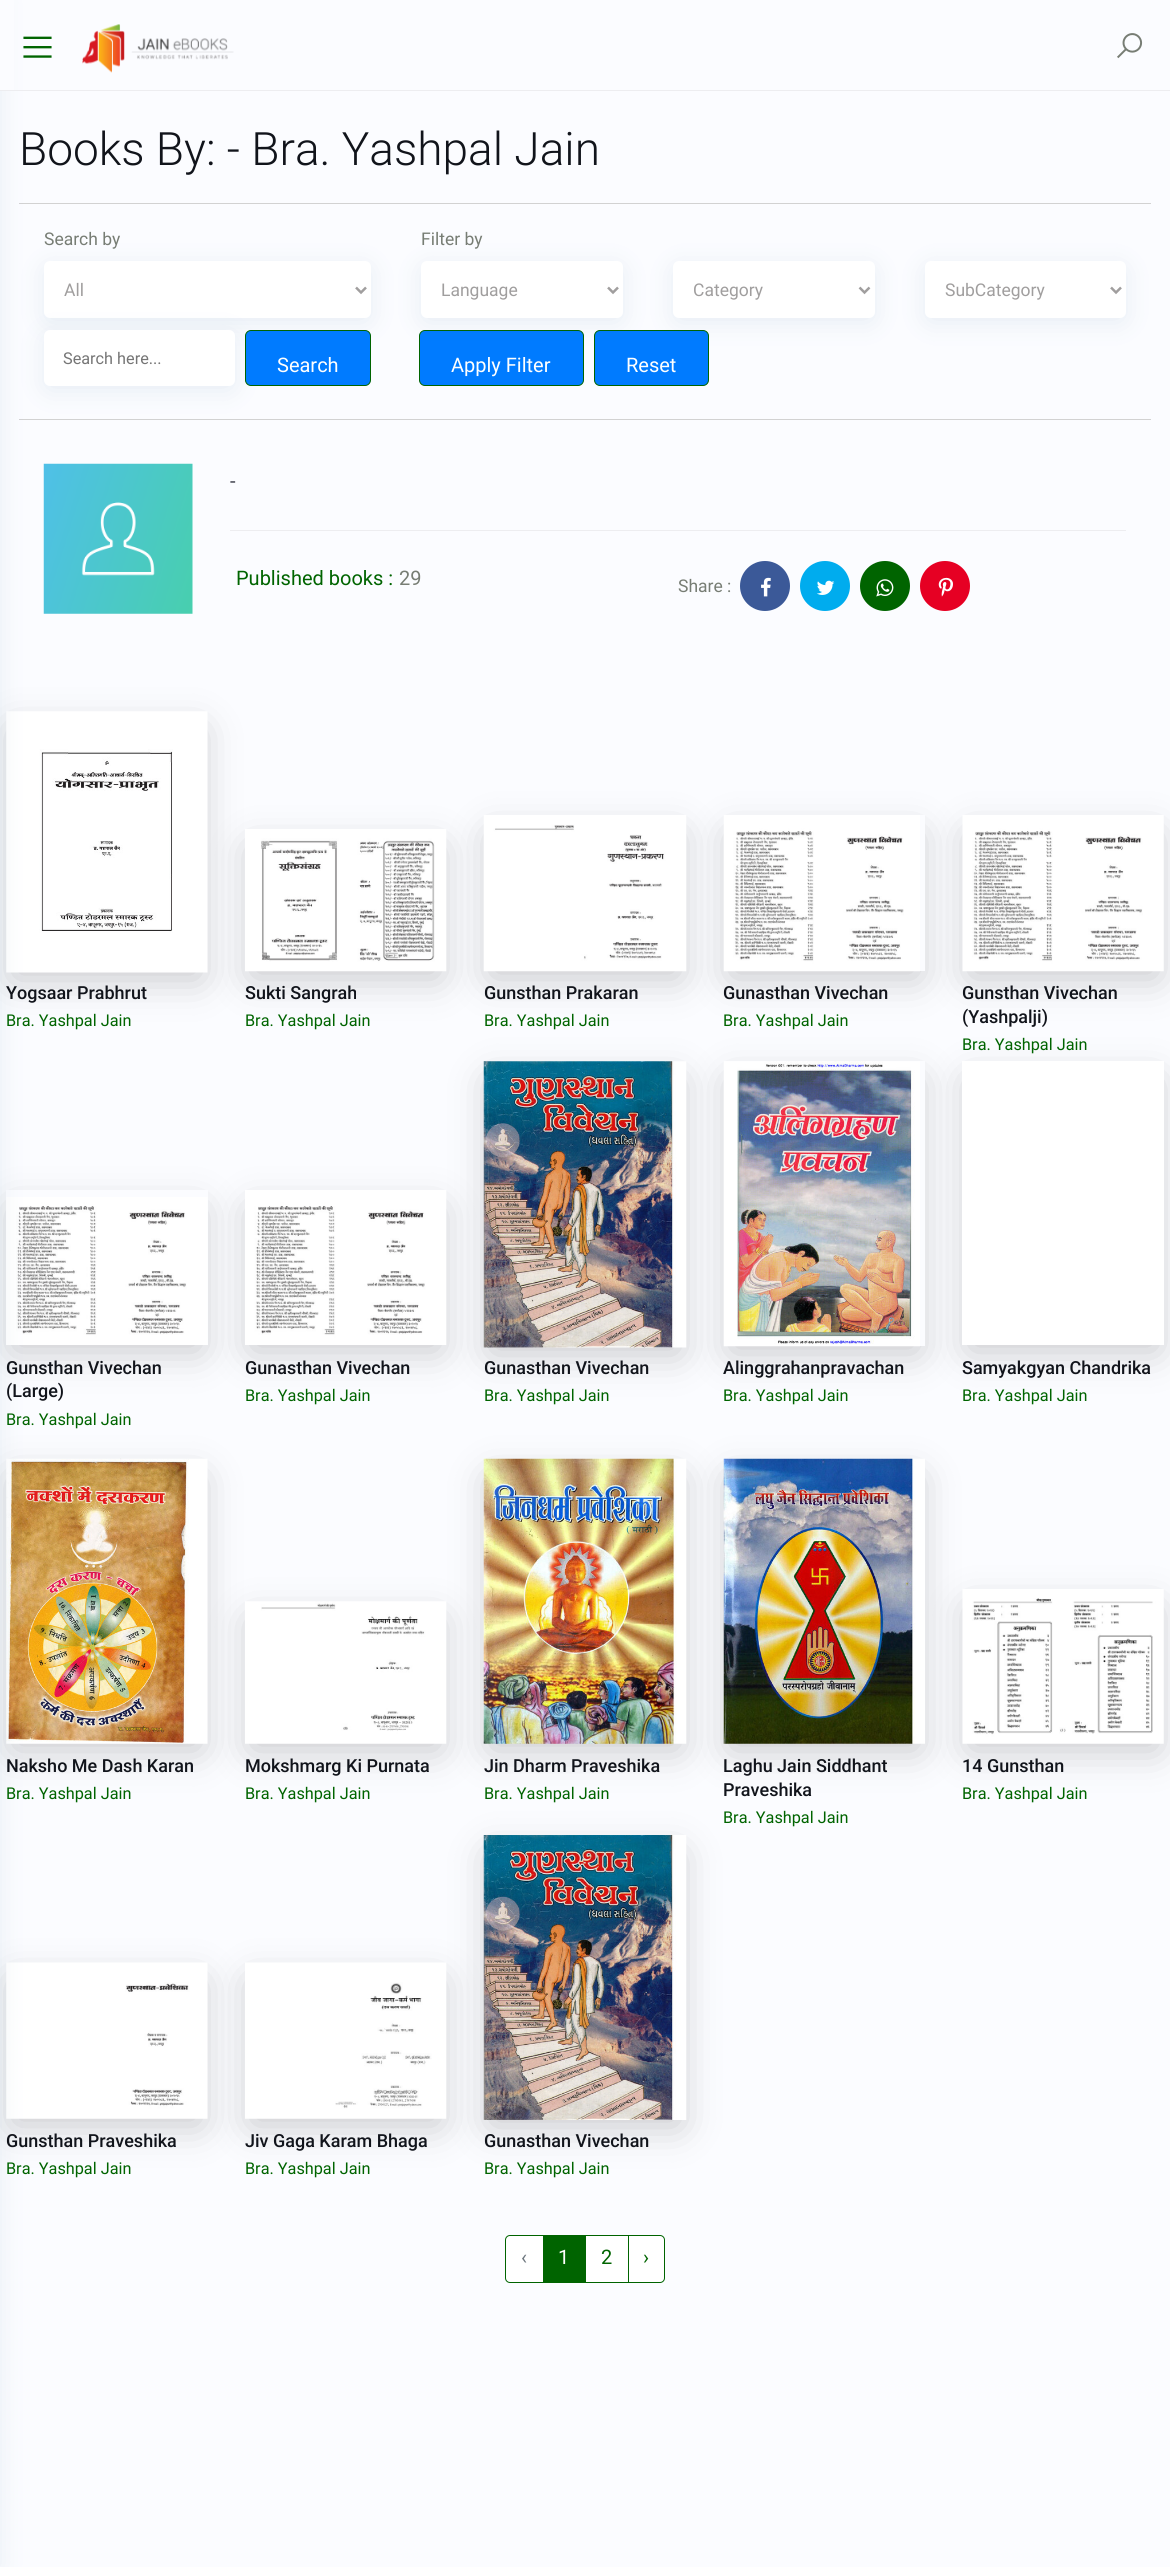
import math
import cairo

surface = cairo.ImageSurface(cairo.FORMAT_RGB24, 1170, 2567)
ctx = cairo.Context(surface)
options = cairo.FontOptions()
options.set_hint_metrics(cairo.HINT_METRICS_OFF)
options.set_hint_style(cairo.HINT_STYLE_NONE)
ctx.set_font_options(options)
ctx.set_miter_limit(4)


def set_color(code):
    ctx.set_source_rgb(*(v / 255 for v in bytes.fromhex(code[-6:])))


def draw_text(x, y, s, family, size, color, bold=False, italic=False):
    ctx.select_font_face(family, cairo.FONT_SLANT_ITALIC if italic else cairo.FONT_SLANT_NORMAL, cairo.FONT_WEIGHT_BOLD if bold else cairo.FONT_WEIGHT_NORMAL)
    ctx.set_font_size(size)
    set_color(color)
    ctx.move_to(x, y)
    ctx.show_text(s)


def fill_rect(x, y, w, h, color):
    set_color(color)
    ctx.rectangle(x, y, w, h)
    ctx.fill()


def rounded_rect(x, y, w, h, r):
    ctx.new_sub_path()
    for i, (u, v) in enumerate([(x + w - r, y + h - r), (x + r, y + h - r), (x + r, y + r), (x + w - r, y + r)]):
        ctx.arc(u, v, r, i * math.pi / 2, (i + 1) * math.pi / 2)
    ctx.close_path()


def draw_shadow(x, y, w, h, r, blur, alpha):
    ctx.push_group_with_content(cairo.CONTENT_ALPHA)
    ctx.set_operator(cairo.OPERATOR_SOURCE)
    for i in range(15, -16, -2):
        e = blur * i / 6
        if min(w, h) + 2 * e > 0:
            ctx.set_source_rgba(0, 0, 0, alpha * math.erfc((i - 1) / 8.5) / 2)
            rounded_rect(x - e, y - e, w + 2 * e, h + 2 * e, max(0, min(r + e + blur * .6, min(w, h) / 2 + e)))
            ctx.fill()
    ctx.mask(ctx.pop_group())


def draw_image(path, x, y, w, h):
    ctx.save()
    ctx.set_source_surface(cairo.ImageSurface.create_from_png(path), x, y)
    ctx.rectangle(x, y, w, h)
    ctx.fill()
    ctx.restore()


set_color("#fbfcff")
ctx.paint()
fill_rect(19, 203, 1132, 1, "#d2d2d2")
fill_rect(19, 419, 1132, 1, "#d2d2d2")
set_color("#000000")
draw_shadow(13, 730, 188, 249, 0, 20, 0.21)
draw_image("assets/img9.png", 6, 711, 202, 262)
ctx.save()
ctx.set_fill_rule(cairo.FILL_RULE_EVEN_ODD)
ctx.new_path()
ctx.move_to(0, 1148)
ctx.line_to(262, 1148)
ctx.line_to(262, 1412)
ctx.line_to(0, 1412)
ctx.close_path()
ctx.move_to(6, 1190)
ctx.line_to(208, 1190)
ctx.line_to(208, 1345)
ctx.line_to(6, 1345)
ctx.close_path()
ctx.clip()
draw_shadow(13, 1209, 188, 142, 0, 20, 0.21)
ctx.restore()
draw_image("assets/img14.png", 6, 1197, 202, 148)
draw_shadow(13, 1478, 188, 272, 0, 20, 0.21)
draw_image("assets/img18.png", 6, 1458, 202, 286)
draw_shadow(13, 1981, 188, 144, 0, 20, 0.21)
draw_image("assets/img23.png", 6, 1962, 202, 157)
set_color("#2c6590")
draw_shadow(-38, 0, 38, 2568, 0, 12.5, 0.1)
fill_rect(0, 0, 14, 90, "#fbfcff")
fill_rect(0, 90, 1170, 1, "#ededf0")
draw_image("assets/img1.png", 23, 36, 29, 22)
draw_image("assets/img2.png", 82, 24, 152, 49)
draw_image("assets/img3.png", 1117, 33, 26, 26)
draw_text(19, 165, "Books By: - Bra. Yashpal Jain", "Roboto Light", 46, "#11141b")
draw_text(44, 245, "Search by", "Roboto", 17.5, "#777d74")
set_color("#2c6590")
draw_shadow(44, 266, 327, 57, 6, 12.5, 0.1)
set_color("#ffffff")
rounded_rect(44, 261, 327, 57, 6)
ctx.fill()
ctx.new_path()
ctx.move_to(356, 287.5)
ctx.line_to(361, 292.5)
ctx.line_to(366, 287.5)
set_color("#a09e9e")
ctx.set_line_width(2.5)
ctx.stroke()
draw_text(64, 296, "All", "Roboto", 17.5, "#a09e9e")
set_color("#2c6590")
draw_shadow(44, 335, 191, 56, 6, 12.5, 0.1)
set_color("#ffffff")
rounded_rect(44, 330, 191, 56, 6)
ctx.fill()
draw_text(63, 364, "Search here...", "Roboto", 16.25, "#757575")
set_color("#007bff")
rounded_rect(245.5, 330.5, 125, 55, 5.5)
ctx.fill_preserve()
set_color("#006400")
ctx.set_line_width(1)
ctx.stroke()
draw_text(277, 372, "Search", "Roboto", 20, "#ffffff")
draw_text(421, 245, "Filter by", "Roboto", 17.5, "#777d74")
set_color("#007bff")
rounded_rect(419.5, 330.5, 164, 55, 5.5)
ctx.fill_preserve()
set_color("#006400")
ctx.stroke()
set_color("#007bff")
rounded_rect(594.5, 330.5, 114, 55, 5.5)
ctx.fill_preserve()
set_color("#006400")
ctx.stroke()
set_color("#2c6590")
draw_shadow(421, 266, 202, 57, 6, 12.5, 0.1)
set_color("#ffffff")
rounded_rect(421, 261, 202, 57, 6)
ctx.fill()
ctx.new_path()
ctx.move_to(608, 287.5)
ctx.line_to(613, 292.5)
ctx.line_to(618, 287.5)
set_color("#a09e9e")
ctx.set_line_width(2.5)
ctx.stroke()
draw_text(441, 296, "Language", "Roboto", 17.5, "#a09e9e")
set_color("#2c6590")
draw_shadow(673, 266, 202, 57, 6, 12.5, 0.1)
set_color("#ffffff")
rounded_rect(673, 261, 202, 57, 6)
ctx.fill()
ctx.new_path()
ctx.move_to(859.5, 287.5)
ctx.line_to(864.5, 292.5)
ctx.line_to(869.5, 287.5)
set_color("#a09e9e")
ctx.stroke()
draw_text(693, 296, "Category", "Roboto", 17.5, "#a09e9e")
set_color("#2c6590")
draw_shadow(925, 266, 201, 57, 6, 12.5, 0.1)
set_color("#ffffff")
rounded_rect(925, 261, 201, 57, 6)
ctx.fill()
ctx.new_path()
ctx.move_to(1111, 287.5)
ctx.line_to(1116, 292.5)
ctx.line_to(1121, 287.5)
set_color("#a09e9e")
ctx.stroke()
draw_text(945, 296, "SubCategory", "Roboto", 17.5, "#a09e9e")
draw_text(451, 372, "Apply Filter", "Roboto", 20, "#ffffff")
draw_text(626, 372, "Reset", "Roboto", 20, "#ffffff")
draw_image("assets/img4.png", 43, 463, 150, 151)
fill_rect(230, 530, 896, 1, "#ededf0")
draw_text(230, 488, "-", "Roboto", 20, "#3f414d")
draw_text(236, 585, "Published books :", "Roboto", 20, "#006400")
draw_text(399, 585, "29", "Roboto", 20, "#777d74")
draw_text(678, 592, "Share :", "Roboto", 17.5, "#777d74")
set_color("#3b5998")
ctx.new_path()
ctx.arc(765, 586, 25, 0, 2 * math.pi)
ctx.fill()
draw_image("assets/img5.png", 761, 577, 10, 20)
set_color("#00acee")
ctx.arc(825, 586, 25, 0, 2 * math.pi)
ctx.fill()
draw_image("assets/img6.png", 817, 580, 18, 15)
set_color("#006400")
ctx.arc(885, 586, 25, 0, 2 * math.pi)
ctx.fill()
draw_image("assets/img7.png", 876, 579, 18, 18)
set_color("#e60023")
ctx.arc(945, 586, 25, 0, 2 * math.pi)
ctx.fill()
draw_image("assets/img8.png", 938, 577, 15, 20)
draw_text(6, 999, "Yogsaar Prabhrut", "Roboto Medium", 18, "#11141b")
draw_text(6, 1026, "Bra. Yashpal Jain", "Roboto", 16.25, "#006400")
set_color("#000000")
draw_shadow(251, 848, 189, 130, 0, 20, 0.21)
draw_image("assets/img10.png", 245, 829, 202, 143)
draw_text(245, 999, "Sukti Sangrah", "Roboto Medium", 18, "#11141b")
draw_text(245, 1026, "Bra. Yashpal Jain", "Roboto", 16.25, "#006400")
set_color("#000000")
draw_shadow(490, 834, 190, 144, 0, 20, 0.21)
draw_image("assets/img11.png", 483, 815, 204, 157)
draw_text(484, 999, "Gunsthan Prakaran", "Roboto Medium", 18, "#11141b")
draw_text(484, 1026, "Bra. Yashpal Jain", "Roboto", 16.25, "#006400")
ctx.save()
ctx.set_fill_rule(cairo.FILL_RULE_EVEN_ODD)
ctx.new_path()
ctx.move_to(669, 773)
ctx.line_to(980, 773)
ctx.line_to(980, 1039)
ctx.line_to(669, 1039)
ctx.close_path()
ctx.move_to(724, 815)
ctx.line_to(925, 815)
ctx.line_to(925, 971)
ctx.line_to(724, 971)
ctx.close_path()
ctx.clip()
set_color("#000000")
draw_shadow(730, 834, 189, 144, 0, 20, 0.21)
ctx.restore()
draw_image("assets/img12.png", 723, 815, 197, 157)
draw_text(723, 999, "Gunasthan Vivechan", "Roboto Medium", 18, "#11141b")
draw_text(723, 1026, "Bra. Yashpal Jain", "Roboto", 16.25, "#006400")
set_color("#000000")
draw_shadow(969, 834, 189, 144, 0, 20, 0.21)
draw_image("assets/img13.png", 962, 815, 202, 157)
draw_text(962, 999, "Gunsthan Vivechan", "Roboto Medium", 18, "#11141b")
draw_text(962, 1023, "(Yashpalji)", "Roboto Medium", 18, "#11141b")
draw_text(962, 1050, "Bra. Yashpal Jain", "Roboto", 16.25, "#006400")
draw_text(6, 1374, "Gunsthan Vivechan", "Roboto Medium", 18, "#11141b")
draw_text(6, 1397, "(Large)", "Roboto Medium", 18, "#11141b")
draw_text(6, 1425, "Bra. Yashpal Jain", "Roboto", 16.25, "#006400")
set_color("#000000")
draw_shadow(251, 1209, 189, 142, 0, 20, 0.21)
draw_image("assets/img15.png", 245, 1190, 202, 155)
draw_text(245, 1374, "Gunasthan Vivechan", "Roboto Medium", 18, "#11141b")
draw_text(245, 1401, "Bra. Yashpal Jain", "Roboto", 16.25, "#006400")
set_color("#000000")
draw_shadow(490, 1080, 190, 274, 0, 20, 0.21)
draw_image("assets/img16.png", 483, 1061, 204, 287)
draw_text(484, 1374, "Gunasthan Vivechan", "Roboto Medium", 18, "#11141b")
draw_text(484, 1401, "Bra. Yashpal Jain", "Roboto", 16.25, "#006400")
ctx.save()
ctx.set_fill_rule(cairo.FILL_RULE_EVEN_ODD)
ctx.new_path()
ctx.move_to(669, 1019)
ctx.line_to(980, 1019)
ctx.line_to(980, 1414)
ctx.line_to(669, 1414)
ctx.close_path()
ctx.move_to(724, 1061)
ctx.line_to(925, 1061)
ctx.line_to(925, 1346)
ctx.line_to(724, 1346)
ctx.close_path()
ctx.clip()
set_color("#000000")
draw_shadow(730, 1080, 189, 273, 0, 20, 0.21)
ctx.restore()
draw_image("assets/img17.png", 723, 1061, 197, 286)
draw_text(723, 1374, "Alinggrahanpravachan", "Roboto Medium", 18, "#11141b")
draw_text(723, 1401, "Bra. Yashpal Jain", "Roboto", 16.25, "#006400")
set_color("#000000")
draw_shadow(969, 1080, 189, 271, 0, 20, 0.21)
fill_rect(962, 1061, 202, 284, "#ffffff")
draw_text(962, 1374, "Samyakgyan Chandrika", "Roboto Medium", 18, "#11141b")
draw_text(962, 1401, "Bra. Yashpal Jain", "Roboto", 16.25, "#006400")
draw_text(6, 1772, "Naksho Me Dash Karan", "Roboto Medium", 18, "#11141b")
draw_text(6, 1799, "Bra. Yashpal Jain", "Roboto", 16.25, "#006400")
set_color("#000000")
draw_shadow(251, 1620, 189, 130, 0, 20, 0.21)
draw_image("assets/img19.png", 245, 1601, 202, 143)
draw_text(245, 1772, "Mokshmarg Ki Purnata", "Roboto Medium", 18, "#11141b")
draw_text(245, 1799, "Bra. Yashpal Jain", "Roboto", 16.25, "#006400")
set_color("#000000")
draw_shadow(490, 1478, 190, 272, 0, 20, 0.21)
draw_image("assets/img20.png", 483, 1458, 204, 286)
draw_text(484, 1772, "Jin Dharm Praveshika", "Roboto Medium", 18, "#11141b")
draw_text(484, 1799, "Bra. Yashpal Jain", "Roboto", 16.25, "#006400")
set_color("#000000")
draw_shadow(730, 1478, 189, 272, 0, 20, 0.21)
draw_image("assets/img21.png", 723, 1458, 202, 286)
draw_text(723, 1772, "Laghu Jain Siddhant", "Roboto Medium", 18, "#11141b")
draw_text(723, 1796, "Praveshika", "Roboto Medium", 18, "#11141b")
draw_text(723, 1823, "Bra. Yashpal Jain", "Roboto", 16.25, "#006400")
set_color("#000000")
draw_shadow(969, 1608, 189, 142, 0, 20, 0.21)
draw_image("assets/img22.png", 962, 1589, 202, 155)
draw_text(962, 1772, "14 Gunsthan", "Roboto Medium", 18, "#11141b")
draw_text(962, 1799, "Bra. Yashpal Jain", "Roboto", 16.25, "#006400")
draw_text(6, 2147, "Gunsthan Praveshika", "Roboto Medium", 18, "#11141b")
draw_text(6, 2174, "Bra. Yashpal Jain", "Roboto", 16.25, "#006400")
set_color("#000000")
draw_shadow(251, 1981, 189, 144, 0, 20, 0.21)
draw_image("assets/img24.png", 245, 1962, 202, 157)
draw_text(245, 2147, "Jiv Gaga Karam Bhaga", "Roboto Medium", 18, "#11141b")
draw_text(245, 2174, "Bra. Yashpal Jain", "Roboto", 16.25, "#006400")
set_color("#000000")
draw_shadow(490, 1854, 190, 272, 0, 20, 0.21)
draw_image("assets/img25.png", 483, 1835, 204, 285)
draw_text(484, 2147, "Gunasthan Vivechan", "Roboto Medium", 18, "#11141b")
draw_text(484, 2174, "Bra. Yashpal Jain", "Roboto", 16.25, "#006400")
set_color("#ffffff")
ctx.new_path()
ctx.move_to(510, 2235.5)
ctx.line_to(543.5, 2235.5)
ctx.line_to(543.5, 2282.5)
ctx.line_to(510, 2282.5)
ctx.curve_to(507.5, 2282.5, 505.5, 2280.5, 505.5, 2278)
ctx.line_to(505.5, 2240)
ctx.curve_to(505.5, 2237.5, 507.5, 2235.5, 510, 2235.5)
ctx.close_path()
ctx.fill_preserve()
set_color("#006400")
ctx.set_line_width(1)
ctx.stroke()
draw_text(521, 2264, "‹", "Roboto", 20, "#6c757d")
fill_rect(544, 2235, 41, 48, "#006400")
draw_text(558, 2264, "1", "Roboto", 20, "#ffffff")
ctx.rectangle(585.5, 2235.5, 43, 47)
ctx.fill_preserve()
set_color("#006400")
ctx.stroke()
draw_text(601, 2264, "2", "Roboto", 20, "#006400")
set_color("#ffffff")
ctx.new_path()
ctx.move_to(628.5, 2235.5)
ctx.line_to(660, 2235.5)
ctx.curve_to(662.5, 2235.5, 664.5, 2237.5, 664.5, 2240)
ctx.line_to(664.5, 2278)
ctx.curve_to(664.5, 2280.5, 662.5, 2282.5, 660, 2282.5)
ctx.line_to(628.5, 2282.5)
ctx.close_path()
ctx.fill_preserve()
set_color("#006400")
ctx.stroke()
draw_text(643, 2264, "›", "Roboto", 20, "#006400")
surface.write_to_png("output.png")
